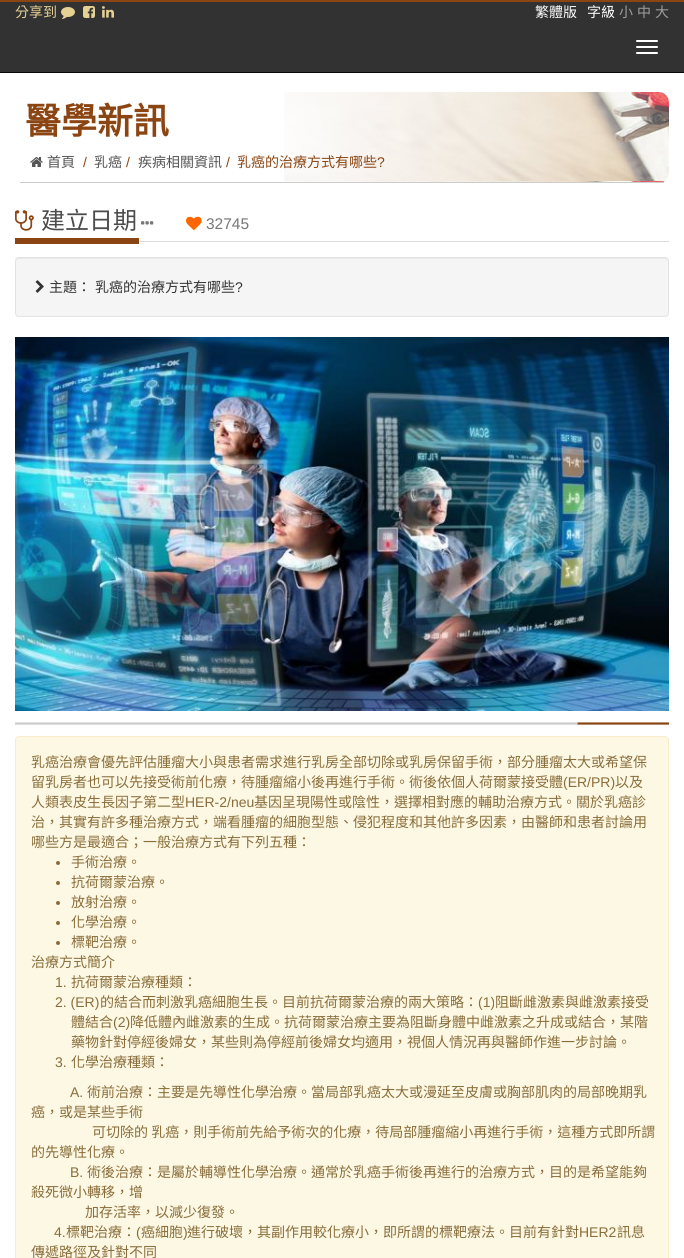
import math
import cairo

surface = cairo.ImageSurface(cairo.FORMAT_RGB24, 684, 1258)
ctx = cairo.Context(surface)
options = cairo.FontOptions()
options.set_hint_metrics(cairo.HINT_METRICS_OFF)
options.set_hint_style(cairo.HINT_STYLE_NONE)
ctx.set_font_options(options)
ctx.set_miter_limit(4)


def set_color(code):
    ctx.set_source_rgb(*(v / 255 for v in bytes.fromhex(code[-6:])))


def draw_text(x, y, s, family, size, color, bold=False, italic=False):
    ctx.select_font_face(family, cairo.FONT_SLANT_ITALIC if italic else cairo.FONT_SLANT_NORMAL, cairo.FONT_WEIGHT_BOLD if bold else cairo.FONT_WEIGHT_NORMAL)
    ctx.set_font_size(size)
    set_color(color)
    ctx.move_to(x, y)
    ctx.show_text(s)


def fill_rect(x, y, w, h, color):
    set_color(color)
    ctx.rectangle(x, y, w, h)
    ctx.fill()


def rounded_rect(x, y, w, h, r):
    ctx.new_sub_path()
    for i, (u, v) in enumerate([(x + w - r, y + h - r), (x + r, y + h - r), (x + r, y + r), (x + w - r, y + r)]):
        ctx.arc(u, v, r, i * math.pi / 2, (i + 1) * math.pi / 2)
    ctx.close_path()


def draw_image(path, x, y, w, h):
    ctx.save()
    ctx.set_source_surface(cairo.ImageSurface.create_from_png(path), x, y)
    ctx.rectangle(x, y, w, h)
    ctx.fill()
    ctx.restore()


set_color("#ffffff")
ctx.paint()
fill_rect(0, 2, 684, 70, "#323232")
fill_rect(0, 72, 684, 1, "#080808")
fill_rect(0, 0, 684, 2, "#8b4513")
draw_text(15, 17, "分享到", "Noto Sans CJK TC", 14, "#e6d194")
draw_image("assets/img1.png", 61, 7, 14, 12)
draw_image("assets/img2.png", 83, 6, 12, 12)
draw_image("assets/img3.png", 102, 6, 12, 12)
draw_text(535, 17, "繁體版", "Noto Sans CJK TC", 14, "#ffffff")
draw_text(587, 17, "字級", "Noto Sans CJK TC", 14, "#ffffff")
draw_text(619, 17, "小", "Noto Sans CJK TC", 14, "#9d9d9d")
draw_text(637, 17, "中", "Noto Sans CJK TC", 14, "#9d9d9d")
draw_text(655, 17, "大", "Noto Sans CJK TC", 14, "#9d9d9d")
set_color("#ffffff")
rounded_rect(636, 40, 22, 2, 1)
ctx.fill()
rounded_rect(636, 46, 22, 2, 1)
ctx.fill()
rounded_rect(636, 52, 22, 2, 1)
ctx.fill()
draw_image("assets/img4.png", 284, 92, 385, 90)
fill_rect(20, 182, 644, 1, "#cccccc")
draw_text(25, 134, "醫學新訊", "Noto Sans CJK TC", 36, "#8b4513", bold=True)
draw_image("assets/img5.png", 30, 157, 13, 10)
draw_text(47, 167, "首頁", "Noto Sans CJK TC", 14, "#555555")
draw_text(83, 167, "/", "Liberation Sans", 14, "#8b4513")
draw_text(94, 167, "乳癌", "Noto Sans CJK TC", 14, "#555555")
draw_text(126, 167, "/", "Liberation Sans", 14, "#8b4513")
draw_text(138, 167, "疾病相關資訊", "Noto Sans CJK TC", 14, "#555555")
draw_text(226, 167, "/", "Liberation Sans", 14, "#8b4513")
draw_text(237, 167, "乳癌的治療方式有哪些", "Noto Sans CJK TC", 14, "#8b4513")
draw_text(377, 167, "?", "Liberation Sans", 14, "#8b4513")
draw_image("assets/img6.png", 15, 210, 19, 21)
draw_text(41, 229, "建立日期", "Noto Sans CJK TC", 24, "#4c4c4c")
draw_image("assets/img7.png", 141, 221, 13, 4)
draw_image("assets/img8.png", 186, 216, 16, 15)
draw_text(206, 229, "32745", "Liberation Sans", 15.5, "#777777")
fill_rect(15, 238, 124, 6, "#8b4513")
fill_rect(139, 241, 530, 1, "#dbdbdb")
set_color("#f5f5f5")
rounded_rect(15, 257, 654, 60, 4)
ctx.fill()
set_color("#e9e9e9")
ctx.new_path()
ctx.move_to(19, 259)
ctx.line_to(665, 259)
ctx.curve_to(667, 259, 668, 260, 668, 262)
ctx.line_to(668, 261)
ctx.curve_to(668, 259, 667, 258, 665, 258)
ctx.line_to(19, 258)
ctx.curve_to(17, 258, 16, 259, 16, 261)
ctx.line_to(16, 262)
ctx.curve_to(16, 260, 17, 259, 19, 259)
ctx.close_path()
ctx.fill()
rounded_rect(15.5, 257.5, 653, 59, 3.5)
set_color("#e3e3e3")
ctx.set_line_width(1)
ctx.stroke()
draw_image("assets/img9.png", 35, 280, 9, 13)
draw_text(49, 292, "主題：", "Noto Sans CJK TC", 14, "#333333")
draw_text(95, 292, "乳癌的治療方式有哪些", "Noto Sans CJK TC", 14, "#333333")
draw_text(235, 292, "?", "Liberation Sans", 14, "#333333")
draw_image("assets/img10.png", 15, 337, 654, 374)
draw_image("assets/img11.png", 15, 722, 654, 3)
set_color("#fcf8e3")
rounded_rect(15.5, 736.5, 653, 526, 3.5)
ctx.fill_preserve()
set_color("#faebcc")
ctx.stroke()
draw_text(31, 767, "乳癌治療會優先評估腫瘤大小與患者需求進行乳房全部切除或乳房保留手術，部分腫瘤太大或希望保", "Noto Sans CJK TC", 14, "#8a6d3b")
draw_text(31, 787, "留乳房者也可以先接受術前化療，待腫瘤縮小後再進行手術。術後依個人荷爾蒙接受體", "Noto Sans CJK TC", 14, "#8a6d3b")
draw_text(563, 787, "(ER/PR)", "Liberation Sans", 14, "#8a6d3b")
draw_text(615, 787, "以及", "Noto Sans CJK TC", 14, "#8a6d3b")
draw_text(31, 807, "人類表皮生長因子第二型", "Noto Sans CJK TC", 14, "#8a6d3b")
draw_text(185, 807, "HER-2/neu", "Liberation Sans", 14, "#8a6d3b")
draw_text(254, 807, "基因呈現陽性或陰性，選擇相對應的輔助治療方式。關於乳癌診", "Noto Sans CJK TC", 14, "#8a6d3b")
draw_text(31, 827, "治，其實有許多種治療方式，端看腫瘤的細胞型態、侵犯程度和其他許多因素，由醫師和患者討論用", "Noto Sans CJK TC", 14, "#8a6d3b")
draw_text(31, 847, "哪些方是最適合；一般治療方式有下列五種：", "Noto Sans CJK TC", 14, "#8a6d3b")
ctx.new_path()
ctx.arc(58, 863, 2, 0, 2 * math.pi)
ctx.fill()
draw_text(71, 867, "手術治療。", "Noto Sans CJK TC", 14, "#8a6d3b")
ctx.new_path()
ctx.arc(58, 883, 2, 0, 2 * math.pi)
ctx.fill()
draw_text(71, 887, "抗荷爾蒙治療。", "Noto Sans CJK TC", 14, "#8a6d3b")
ctx.new_path()
ctx.arc(58, 903, 2, 0, 2 * math.pi)
ctx.fill()
draw_text(71, 907, "放射治療。", "Noto Sans CJK TC", 14, "#8a6d3b")
ctx.new_path()
ctx.arc(58, 923, 2, 0, 2 * math.pi)
ctx.fill()
draw_text(71, 927, "化學治療。", "Noto Sans CJK TC", 14, "#8a6d3b")
ctx.new_path()
ctx.arc(58, 943, 2, 0, 2 * math.pi)
ctx.fill()
draw_text(71, 947, "標靶治療。", "Noto Sans CJK TC", 14, "#8a6d3b")
draw_text(31, 967, "治療方式簡介", "Noto Sans CJK TC", 14, "#8a6d3b")
draw_text(55, 987, "1.", "Liberation Sans", 14, "#8a6d3b")
draw_text(71, 987, "抗荷爾蒙治療種類：", "Noto Sans CJK TC", 14, "#8a6d3b")
draw_text(55, 1007, "2. (ER)", "Liberation Sans", 14, "#8a6d3b")
draw_text(100, 1007, "的結合而刺激乳癌細胞生長。目前抗荷爾蒙治療的兩大策略：", "Noto Sans CJK TC", 14, "#8a6d3b")
draw_text(478, 1007, "(1)", "Liberation Sans", 14, "#8a6d3b")
draw_text(495, 1007, "阻斷雌激素與雌激素接受", "Noto Sans CJK TC", 14, "#8a6d3b")
draw_text(71, 1027, "體結合", "Noto Sans CJK TC", 14, "#8a6d3b")
draw_text(113, 1027, "(2)", "Liberation Sans", 14, "#8a6d3b")
draw_text(130, 1027, "降低體內雌激素的生成。抗荷爾蒙治療主要為阻斷身體中雌激素之升成或結合，某階", "Noto Sans CJK TC", 14, "#8a6d3b")
draw_text(71, 1047, "藥物針對停經後婦女，某些則為停經前後婦女均適用，視個人情況再與醫師作進一步討論。", "Noto Sans CJK TC", 14, "#8a6d3b")
draw_text(55, 1067, "3.", "Liberation Sans", 14, "#8a6d3b")
draw_text(71, 1067, "化學治療種類：", "Noto Sans CJK TC", 14, "#8a6d3b")
draw_text(70, 1097, "A.", "Liberation Sans", 14, "#8a6d3b")
draw_text(87, 1097, "術前治療：主要是先導性化學治療。當局部乳癌太大或漫延至皮膚或胸部肌肉的局部晚期乳", "Noto Sans CJK TC", 14, "#8a6d3b")
draw_text(31, 1117, "癌，或是某些手術", "Noto Sans CJK TC", 14, "#8a6d3b")
draw_text(92, 1137, "可切除的 乳癌，則手術前先給予術次的化療，待局部腫瘤縮小再進行手術，這種方式即所謂", "Noto Sans CJK TC", 14, "#8a6d3b")
draw_text(31, 1157, "的先導性化療。", "Noto Sans CJK TC", 14, "#8a6d3b")
draw_text(70, 1177, "B.", "Liberation Sans", 14, "#8a6d3b")
draw_text(87, 1177, "術後治療：是屬於輔導性化學治療。通常於乳癌手術後再進行的治療方式，目的是希望能夠", "Noto Sans CJK TC", 14, "#8a6d3b")
draw_text(31, 1197, "殺死微小轉移，增", "Noto Sans CJK TC", 14, "#8a6d3b")
draw_text(85, 1217, "加存活率，以減少復發。", "Noto Sans CJK TC", 14, "#8a6d3b")
draw_text(54, 1237, "4.", "Liberation Sans", 14, "#8a6d3b")
draw_text(66, 1237, "標靶治療：", "Noto Sans CJK TC", 14, "#8a6d3b")
draw_text(136, 1237, "(", "Liberation Sans", 14, "#8a6d3b")
draw_text(141, 1237, "癌細胞", "Noto Sans CJK TC", 14, "#8a6d3b")
draw_text(183, 1237, ")", "Liberation Sans", 14, "#8a6d3b")
draw_text(187, 1237, "進行破壞，其副作用較化療小，即所謂的標靶療法。目前有針對", "Noto Sans CJK TC", 14, "#8a6d3b")
draw_text(579, 1237, "HER2", "Liberation Sans", 14, "#8a6d3b")
draw_text(617, 1237, "訊息", "Noto Sans CJK TC", 14, "#8a6d3b")
draw_text(31, 1257, "傳遞路徑及針對不同", "Noto Sans CJK TC", 14, "#8a6d3b")
surface.write_to_png("output.png")
